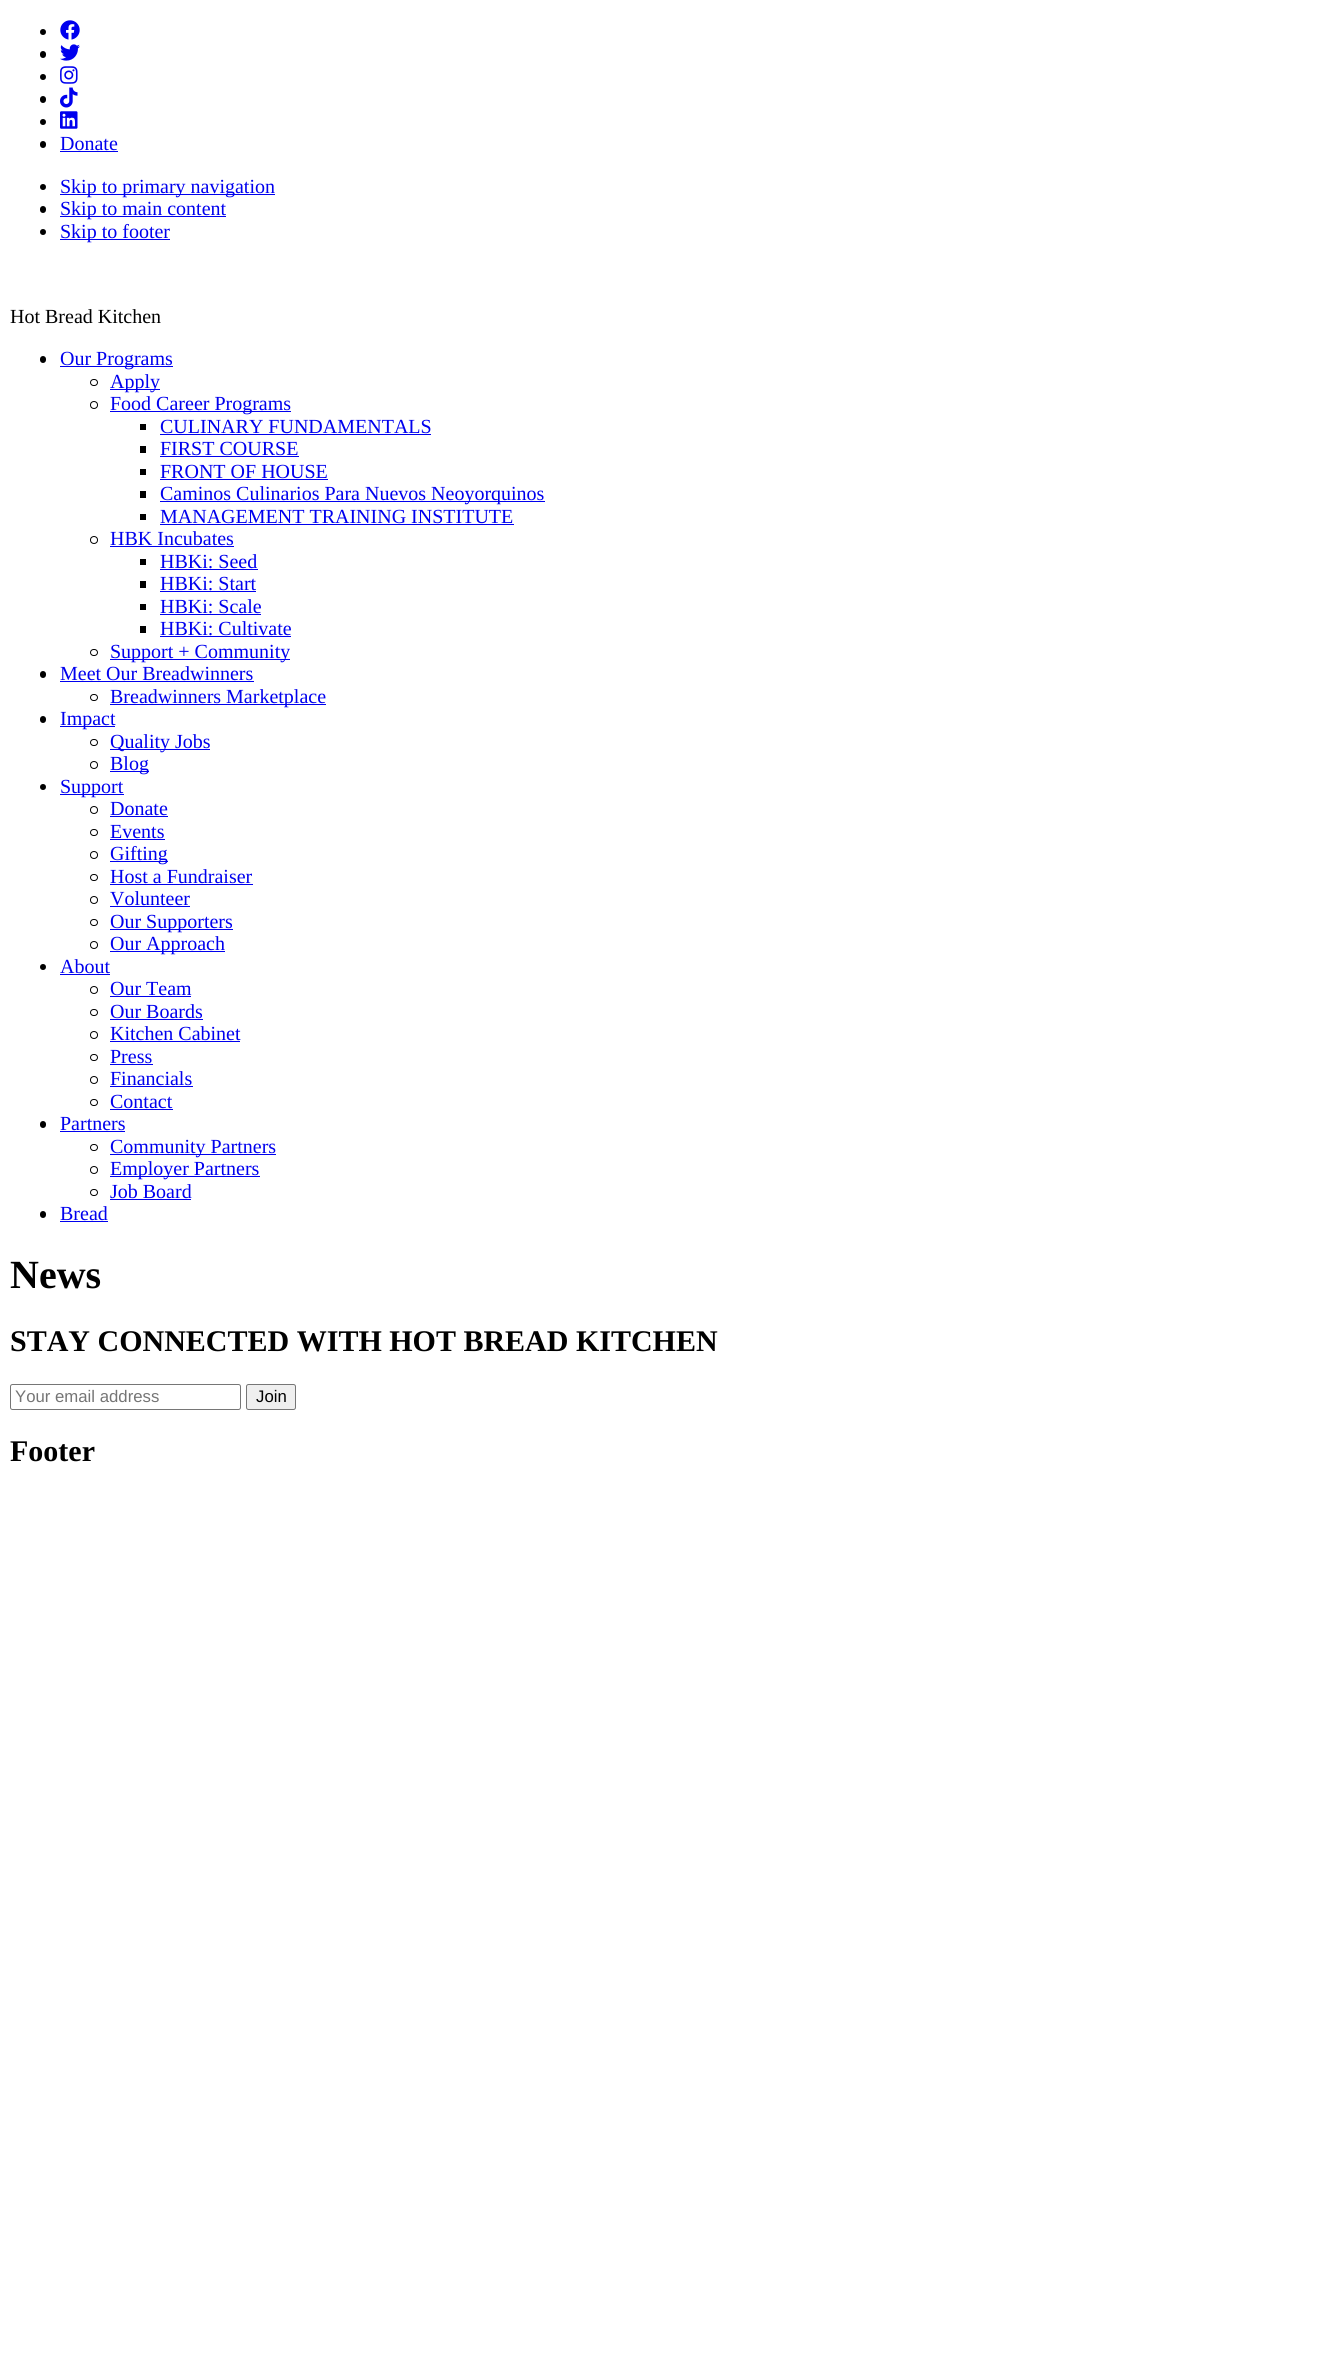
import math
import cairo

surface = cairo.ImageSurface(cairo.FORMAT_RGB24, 1336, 2358)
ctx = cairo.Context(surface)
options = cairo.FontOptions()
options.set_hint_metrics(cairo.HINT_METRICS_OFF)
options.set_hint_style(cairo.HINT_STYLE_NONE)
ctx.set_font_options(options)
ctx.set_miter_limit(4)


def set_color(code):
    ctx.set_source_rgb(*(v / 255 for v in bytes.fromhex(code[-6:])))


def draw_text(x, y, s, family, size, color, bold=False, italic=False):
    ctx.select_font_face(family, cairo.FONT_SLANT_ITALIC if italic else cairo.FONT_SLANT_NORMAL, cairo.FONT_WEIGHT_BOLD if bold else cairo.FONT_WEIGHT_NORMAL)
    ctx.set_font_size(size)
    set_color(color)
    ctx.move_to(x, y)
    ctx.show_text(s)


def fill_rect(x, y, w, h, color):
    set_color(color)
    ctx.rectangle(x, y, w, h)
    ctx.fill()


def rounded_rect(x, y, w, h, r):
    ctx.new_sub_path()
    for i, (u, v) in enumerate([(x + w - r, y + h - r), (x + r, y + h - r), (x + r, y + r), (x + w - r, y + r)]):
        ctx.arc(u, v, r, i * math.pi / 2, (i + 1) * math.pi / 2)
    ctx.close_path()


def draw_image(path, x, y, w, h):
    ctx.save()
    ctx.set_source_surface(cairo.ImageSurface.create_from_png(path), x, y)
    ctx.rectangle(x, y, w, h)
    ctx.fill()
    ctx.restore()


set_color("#ffffff")
ctx.paint()
set_color("#000000")
ctx.arc(43, 32, 3, 0, 2 * math.pi)
ctx.fill()
draw_image("assets/img1.png", 60, 20, 20, 20)
rounded_rect(40, 51, 6, 7, 3)
ctx.fill()
draw_image("assets/img2.png", 60, 44, 20, 17)
ctx.arc(43, 77, 3, 0, 2 * math.pi)
ctx.fill()
draw_image("assets/img3.png", 60, 66, 18, 18)
rounded_rect(40, 96, 6, 7, 3)
ctx.fill()
draw_image("assets/img4.png", 60, 87, 18, 21)
ctx.arc(43, 122, 3, 0, 2 * math.pi)
ctx.fill()
draw_image("assets/img5.png", 60, 111, 18, 18)
rounded_rect(40, 141, 6, 7, 3)
ctx.fill()
draw_text(60, 150, "Donate", "Liberation Serif", 20, "#0000ee")
fill_rect(60, 151, 58, 1, "#0000ee")
set_color("#000000")
ctx.new_path()
ctx.arc(43, 187, 3, 0, 2 * math.pi)
ctx.fill()
fill_rect(60, 194, 215, 1, "#0000ee")
draw_text(60, 193, "Skip to primary navigation", "Liberation Serif", 20, "#0000ee")
set_color("#000000")
rounded_rect(40, 206, 6, 7, 3)
ctx.fill()
fill_rect(60, 216, 166, 1, "#0000ee")
draw_text(60, 215, "Skip to main content", "Liberation Serif", 20, "#0000ee")
set_color("#000000")
ctx.new_path()
ctx.arc(43, 232, 3, 0, 2 * math.pi)
ctx.fill()
fill_rect(60, 239, 110, 1, "#0000ee")
draw_text(60, 238, "Skip to footer", "Liberation Serif", 20, "#0000ee")
draw_text(10, 323, "Hot Bread Kitchen", "Liberation Serif", 20, "#000000")
rounded_rect(40, 356, 6, 7, 3)
ctx.fill()
fill_rect(60, 366, 113, 1, "#0000ee")
draw_text(60, 365, "Our Programs", "Liberation Serif", 20, "#0000ee")
rounded_rect(90.5, 379.5, 7, 6, 3)
set_color("#000000")
ctx.set_line_width(1)
ctx.stroke()
fill_rect(110, 389, 50, 1, "#0000ee")
draw_text(110, 388, "Apply", "Liberation Serif", 20, "#0000ee")
ctx.new_path()
ctx.arc(94, 405, 3.5, 0, 2 * math.pi)
set_color("#000000")
ctx.stroke()
fill_rect(110, 411, 181, 1, "#0000ee")
draw_text(110, 410, "Food Career Programs", "Liberation Serif", 20, "#0000ee")
fill_rect(140, 424, 6, 6, "#000000")
draw_text(160, 433, "CULINARY FUNDAMENTALS", "Liberation Serif", 20, "#0000ee")
fill_rect(160, 434, 271, 1, "#0000ee")
fill_rect(140, 446, 6, 7, "#000000")
draw_text(160, 455, "FIRST COURSE", "Liberation Serif", 20, "#0000ee")
fill_rect(160, 456, 139, 1, "#0000ee")
fill_rect(140, 469, 6, 6, "#000000")
draw_text(160, 478, "FRONT OF HOUSE", "Liberation Serif", 20, "#0000ee")
fill_rect(160, 479, 168, 1, "#0000ee")
fill_rect(140, 491, 6, 7, "#000000")
fill_rect(160, 501, 385, 1, "#0000ee")
draw_text(160, 500, "Caminos Culinarios Para Nuevos Neoyorquinos", "Liberation Serif", 20, "#0000ee")
fill_rect(140, 514, 6, 6, "#000000")
draw_text(160, 523, "MANAGEMENT TRAINING INSTITUTE", "Liberation Serif", 20, "#0000ee")
fill_rect(160, 524, 354, 1, "#0000ee")
ctx.new_path()
ctx.arc(94, 540, 3.5, 0, 2 * math.pi)
set_color("#000000")
ctx.stroke()
draw_text(110, 545, "HBK Incubates", "Liberation Serif", 20, "#0000ee")
fill_rect(110, 546, 124, 1, "#0000ee")
fill_rect(140, 559, 6, 6, "#000000")
draw_text(160, 568, "HBKi: Seed", "Liberation Serif", 20, "#0000ee")
fill_rect(160, 569, 98, 1, "#0000ee")
fill_rect(140, 581, 6, 7, "#000000")
draw_text(160, 590, "HBKi: Start", "Liberation Serif", 20, "#0000ee")
fill_rect(160, 591, 96, 1, "#0000ee")
fill_rect(140, 604, 6, 6, "#000000")
draw_text(160, 613, "HBKi: Scale", "Liberation Serif", 20, "#0000ee")
fill_rect(160, 614, 101, 1, "#0000ee")
fill_rect(140, 626, 6, 7, "#000000")
draw_text(160, 635, "HBKi: Cultivate", "Liberation Serif", 20, "#0000ee")
fill_rect(160, 636, 131, 1, "#0000ee")
rounded_rect(90.5, 649.5, 7, 6, 3)
set_color("#000000")
ctx.stroke()
fill_rect(110, 659, 180, 1, "#0000ee")
draw_text(110, 658, "Support + Community", "Liberation Serif", 20, "#0000ee")
set_color("#000000")
rounded_rect(40, 671, 6, 7, 3)
ctx.fill()
draw_text(60, 680, "Meet Our Breadwinners", "Liberation Serif", 20, "#0000ee")
fill_rect(60, 681, 194, 1, "#0000ee")
rounded_rect(90.5, 694.5, 7, 6, 3)
set_color("#000000")
ctx.stroke()
fill_rect(110, 704, 216, 1, "#0000ee")
draw_text(110, 703, "Breadwinners Marketplace", "Liberation Serif", 20, "#0000ee")
set_color("#000000")
rounded_rect(40, 716, 6, 7, 3)
ctx.fill()
fill_rect(60, 726, 55, 1, "#0000ee")
draw_text(60, 725, "Impact", "Liberation Serif", 20, "#0000ee")
rounded_rect(90.5, 739.5, 7, 6, 3)
set_color("#000000")
ctx.stroke()
fill_rect(110, 749, 100, 1, "#0000ee")
draw_text(110, 748, "Quality Jobs", "Liberation Serif", 20, "#0000ee")
ctx.new_path()
ctx.arc(94, 765, 3.5, 0, 2 * math.pi)
set_color("#000000")
ctx.stroke()
fill_rect(110, 771, 39, 1, "#0000ee")
draw_text(110, 770, "Blog", "Liberation Serif", 20, "#0000ee")
set_color("#000000")
ctx.new_path()
ctx.arc(43, 787, 3, 0, 2 * math.pi)
ctx.fill()
fill_rect(60, 794, 64, 1, "#0000ee")
draw_text(60, 793, "Support", "Liberation Serif", 20, "#0000ee")
ctx.new_path()
ctx.arc(94, 810, 3.5, 0, 2 * math.pi)
set_color("#000000")
ctx.stroke()
draw_text(110, 815, "Donate", "Liberation Serif", 20, "#0000ee")
fill_rect(110, 816, 58, 1, "#0000ee")
rounded_rect(90.5, 829.5, 7, 6, 3)
set_color("#000000")
ctx.stroke()
draw_text(110, 838, "Events", "Liberation Serif", 20, "#0000ee")
fill_rect(110, 839, 55, 1, "#0000ee")
ctx.new_path()
ctx.arc(94, 855, 3.5, 0, 2 * math.pi)
set_color("#000000")
ctx.stroke()
fill_rect(110, 861, 58, 1, "#0000ee")
draw_text(110, 860, "Gifting", "Liberation Serif", 20, "#0000ee")
rounded_rect(90.5, 874.5, 7, 6, 3)
set_color("#000000")
ctx.stroke()
draw_text(110, 883, "Host a Fundraiser", "Liberation Serif", 20, "#0000ee")
fill_rect(110, 884, 143, 1, "#0000ee")
ctx.new_path()
ctx.arc(94, 900, 3.5, 0, 2 * math.pi)
set_color("#000000")
ctx.stroke()
draw_text(110, 905, "Volunteer", "Liberation Serif", 20, "#0000ee")
fill_rect(110, 906, 80, 1, "#0000ee")
rounded_rect(90.5, 919.5, 7, 6, 3)
set_color("#000000")
ctx.stroke()
fill_rect(110, 929, 123, 1, "#0000ee")
draw_text(110, 928, "Our Supporters", "Liberation Serif", 20, "#0000ee")
ctx.new_path()
ctx.arc(94, 945, 3.5, 0, 2 * math.pi)
set_color("#000000")
ctx.stroke()
fill_rect(110, 951, 115, 1, "#0000ee")
draw_text(110, 950, "Our Approach", "Liberation Serif", 20, "#0000ee")
set_color("#000000")
ctx.new_path()
ctx.arc(43, 967, 3, 0, 2 * math.pi)
ctx.fill()
draw_text(60, 973, "About", "Liberation Serif", 20, "#0000ee")
fill_rect(60, 974, 50, 1, "#0000ee")
ctx.new_path()
ctx.arc(94, 990, 3.5, 0, 2 * math.pi)
set_color("#000000")
ctx.stroke()
draw_text(110, 995, "Our Team", "Liberation Serif", 20, "#0000ee")
fill_rect(110, 996, 81, 1, "#0000ee")
rounded_rect(90.5, 1009.5, 7, 6, 3)
set_color("#000000")
ctx.stroke()
draw_text(110, 1018, "Our Boards", "Liberation Serif", 20, "#0000ee")
fill_rect(110, 1019, 93, 1, "#0000ee")
ctx.new_path()
ctx.arc(94, 1035, 3.5, 0, 2 * math.pi)
set_color("#000000")
ctx.stroke()
draw_text(110, 1040, "Kitchen Cabinet", "Liberation Serif", 20, "#0000ee")
fill_rect(110, 1041, 130, 1, "#0000ee")
rounded_rect(90.5, 1054.5, 7, 6, 3)
set_color("#000000")
ctx.stroke()
draw_text(110, 1063, "Press", "Liberation Serif", 20, "#0000ee")
fill_rect(110, 1064, 43, 1, "#0000ee")
ctx.new_path()
ctx.arc(94, 1080, 3.5, 0, 2 * math.pi)
set_color("#000000")
ctx.stroke()
draw_text(110, 1085, "Financials", "Liberation Serif", 20, "#0000ee")
fill_rect(110, 1086, 83, 1, "#0000ee")
rounded_rect(90.5, 1099.5, 7, 6, 3)
set_color("#000000")
ctx.stroke()
draw_text(110, 1108, "Contact", "Liberation Serif", 20, "#0000ee")
fill_rect(110, 1109, 63, 1, "#0000ee")
set_color("#000000")
rounded_rect(40, 1121, 6, 7, 3)
ctx.fill()
draw_text(60, 1130, "Partners", "Liberation Serif", 20, "#0000ee")
fill_rect(60, 1131, 65, 1, "#0000ee")
rounded_rect(90.5, 1144.5, 7, 6, 3)
set_color("#000000")
ctx.stroke()
fill_rect(110, 1154, 166, 1, "#0000ee")
draw_text(110, 1153, "Community Partners", "Liberation Serif", 20, "#0000ee")
ctx.new_path()
ctx.arc(94, 1170, 3.5, 0, 2 * math.pi)
set_color("#000000")
ctx.stroke()
fill_rect(110, 1176, 150, 1, "#0000ee")
draw_text(110, 1175, "Employer Partners", "Liberation Serif", 20, "#0000ee")
rounded_rect(90.5, 1189.5, 7, 6, 3)
set_color("#000000")
ctx.stroke()
draw_text(110, 1198, "Job Board", "Liberation Serif", 20, "#0000ee")
fill_rect(110, 1199, 81, 1, "#0000ee")
set_color("#000000")
rounded_rect(40, 1211, 6, 7, 3)
ctx.fill()
draw_text(60, 1220, "Bread", "Liberation Serif", 20, "#0000ee")
fill_rect(60, 1221, 48, 1, "#0000ee")
draw_text(10, 1288, "News", "Liberation Serif", 40, "#000000", bold=True)
draw_text(10, 1351, "STAY CONNECTED WITH HOT BREAD KITCHEN", "Liberation Serif", 30, "#000000", bold=True)
rounded_rect(10.5, 1384.5, 230, 25, 2)
set_color("#767676")
ctx.stroke()
draw_text(15, 1402, "Your email address", "Liberation Sans", 16.75, "#757575")
set_color("#efefef")
rounded_rect(246.5, 1384.5, 49, 25, 2)
ctx.fill_preserve()
set_color("#767676")
ctx.stroke()
draw_text(256, 1402, "Join", "Liberation Sans", 16.75, "#000000")
draw_text(10, 1461, "Footer", "Liberation Serif", 30, "#000000", bold=True)
surface.write_to_png("output.png")
